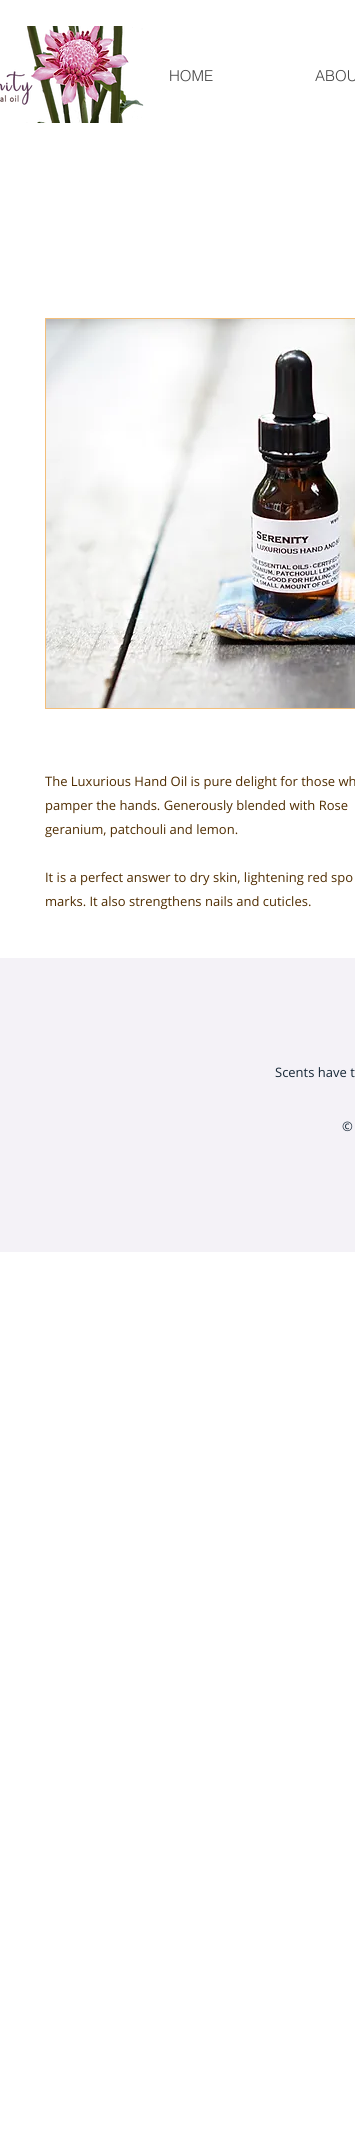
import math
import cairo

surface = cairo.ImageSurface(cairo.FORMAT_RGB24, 355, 2156)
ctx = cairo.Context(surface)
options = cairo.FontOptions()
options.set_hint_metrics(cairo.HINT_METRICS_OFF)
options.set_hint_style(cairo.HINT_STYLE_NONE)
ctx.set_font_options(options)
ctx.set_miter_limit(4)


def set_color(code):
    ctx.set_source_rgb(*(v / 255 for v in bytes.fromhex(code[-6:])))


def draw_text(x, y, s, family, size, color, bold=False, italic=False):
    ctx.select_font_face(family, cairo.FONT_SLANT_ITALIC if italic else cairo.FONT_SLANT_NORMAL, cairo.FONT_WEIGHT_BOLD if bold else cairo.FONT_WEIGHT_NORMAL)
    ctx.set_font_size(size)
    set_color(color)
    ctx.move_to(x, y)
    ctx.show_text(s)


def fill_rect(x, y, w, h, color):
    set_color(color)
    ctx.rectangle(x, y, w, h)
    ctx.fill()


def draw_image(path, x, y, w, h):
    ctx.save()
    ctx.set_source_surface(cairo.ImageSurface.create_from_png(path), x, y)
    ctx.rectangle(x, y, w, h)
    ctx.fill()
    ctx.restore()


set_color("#ffffff")
ctx.paint()
draw_image("assets/img1.png", 0, 26, 144, 97)
draw_text(169, 81, "HOME", "helvetica Light", 15, "#444444")
draw_text(315, 81, "ABOU", "helvetica Light", 15, "#444444")
ctx.rectangle(45.5, 318.5, 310, 390)
set_color("#f3be79")
ctx.set_line_width(1)
ctx.stroke()
draw_image("assets/img2.png", 46, 319, 309, 389)
draw_text(45, 786, "The Luxurious Hand Oil is pure delight for those wh", "Open Sans", 13, "#4f2c00")
draw_text(45, 810, "pamper the hands. Generously blended with Rose", "Open Sans", 13, "#4f2c00")
draw_text(45, 834, "geranium, patchouli and lemon.", "Open Sans", 13, "#4f2c00")
draw_text(45, 882, "It is a perfect answer to dry skin, lightening red spo", "Open Sans", 13, "#4f2c00")
draw_text(45, 906, "marks. It also strengthens nails and cuticles.", "Open Sans", 13, "#4f2c00")
fill_rect(0, 958, 355, 294, "#f4f2f7")
draw_text(275, 1077, "Scents have t", "Open Sans", 13, "#152635")
draw_text(342, 1131, "©", "Open Sans", 13, "#152635")
surface.write_to_png("output.png")
